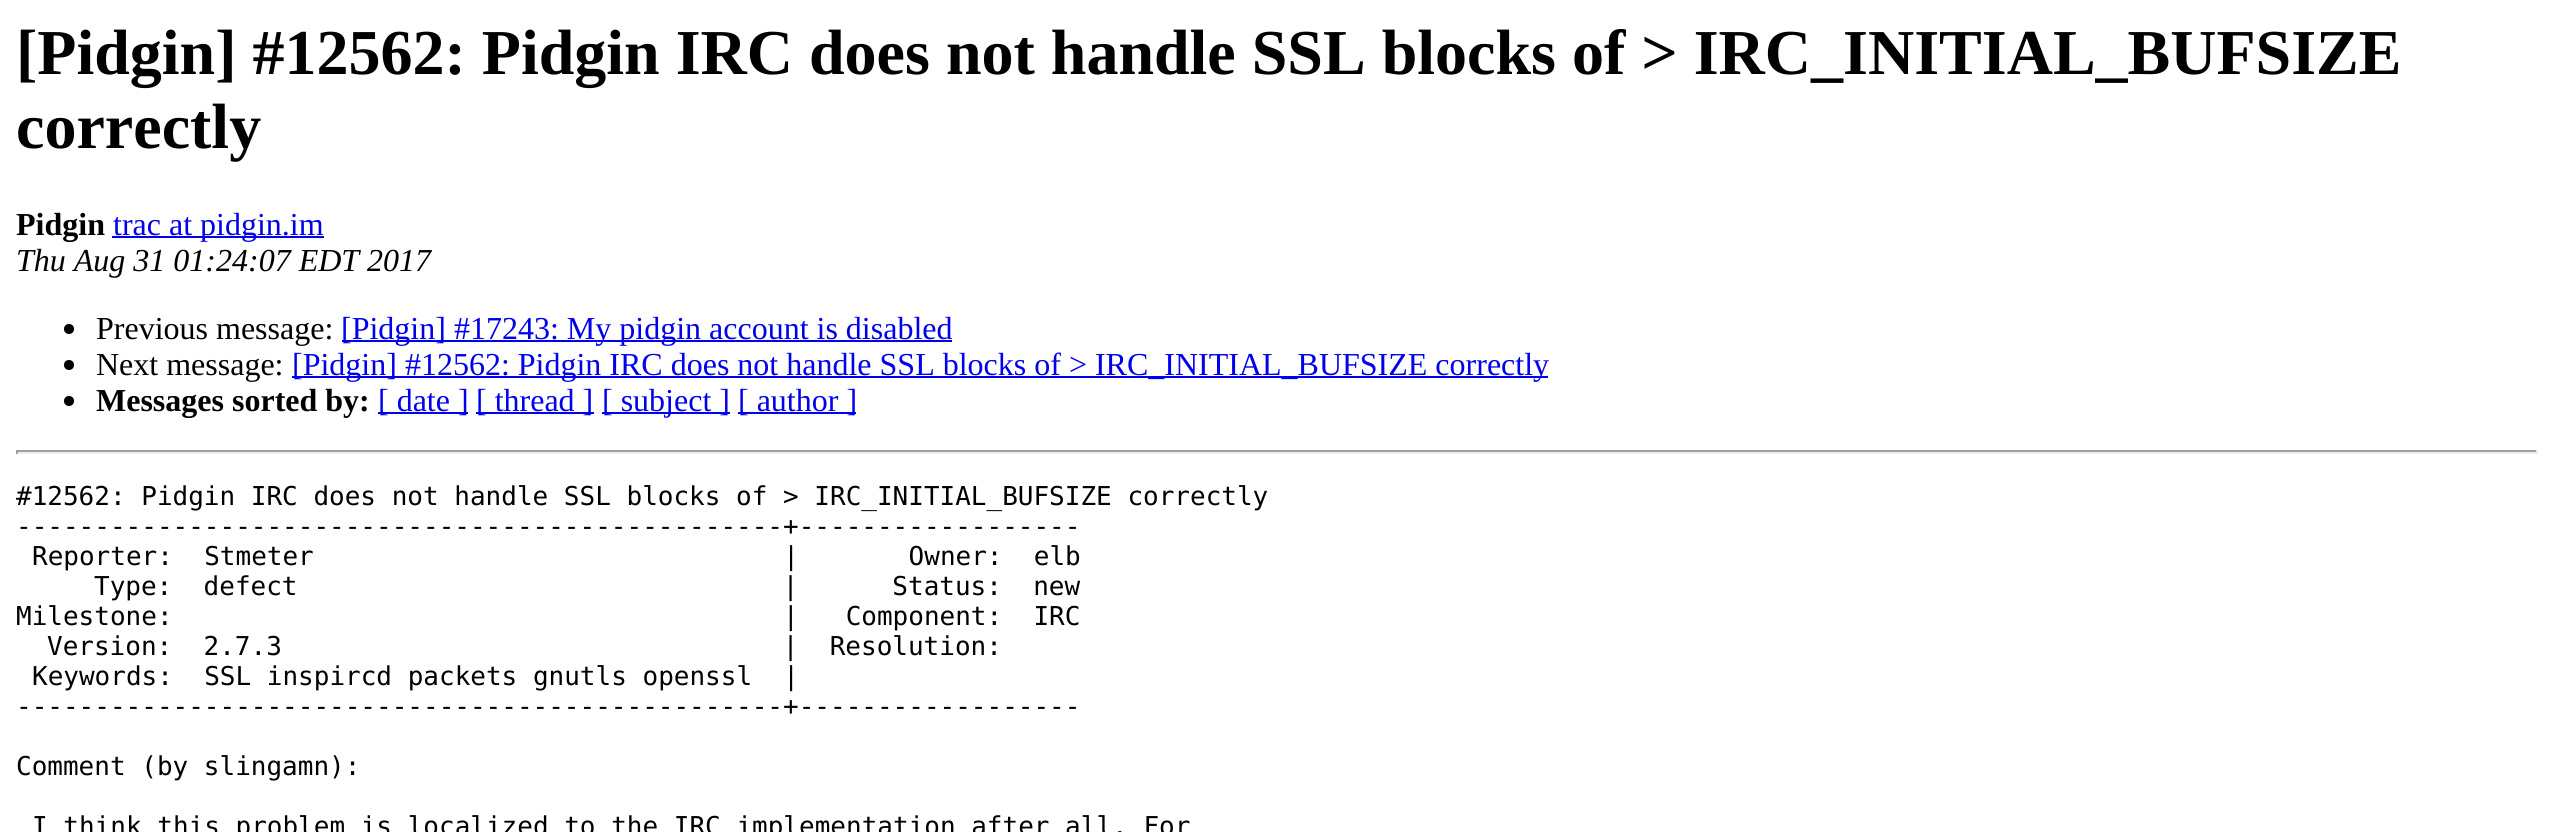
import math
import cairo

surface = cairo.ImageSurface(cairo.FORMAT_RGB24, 2554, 832)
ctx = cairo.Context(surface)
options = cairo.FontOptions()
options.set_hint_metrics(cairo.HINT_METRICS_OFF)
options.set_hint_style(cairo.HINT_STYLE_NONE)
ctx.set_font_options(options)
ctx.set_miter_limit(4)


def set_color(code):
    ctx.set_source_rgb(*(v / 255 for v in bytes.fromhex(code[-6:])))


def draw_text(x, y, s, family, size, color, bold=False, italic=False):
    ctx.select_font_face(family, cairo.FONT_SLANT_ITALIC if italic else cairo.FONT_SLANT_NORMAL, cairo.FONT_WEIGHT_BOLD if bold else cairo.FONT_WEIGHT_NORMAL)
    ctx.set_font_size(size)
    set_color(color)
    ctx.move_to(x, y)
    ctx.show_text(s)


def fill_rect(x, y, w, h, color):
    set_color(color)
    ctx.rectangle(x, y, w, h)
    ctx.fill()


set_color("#ffffff")
ctx.paint()
draw_text(16, 74, "[Pidgin] #12562: Pidgin IRC does not handle SSL blocks of > IRC_INITIAL_BUFSIZE", "Liberation Serif", 64, "#000000", bold=True)
draw_text(16, 148, "correctly", "Liberation Serif", 64, "#000000", bold=True)
draw_text(16, 235, "Pidgin", "Liberation Serif", 32, "#000000", bold=True)
fill_rect(112, 236, 212, 2, "#0000ee")
draw_text(113, 235, "trac at pidgin.im", "Liberation Serif", 32, "#0000ee")
draw_text(16, 271, "Thu Aug 31 01:24:07 EDT 2017", "Liberation Serif", 32, "#000000", italic=True)
ctx.new_path()
ctx.arc(69, 329, 5, 0, 2 * math.pi)
ctx.fill()
draw_text(96, 339, "Previous message:", "Liberation Serif", 32, "#000000")
fill_rect(342, 340, 610, 2, "#0000ee")
draw_text(341, 339, "[Pidgin] #17243: My pidgin account is disabled", "Liberation Serif", 32, "#0000ee")
set_color("#000000")
ctx.new_path()
ctx.arc(69, 365, 5, 0, 2 * math.pi)
ctx.fill()
draw_text(96, 375, "Next message:", "Liberation Serif", 32, "#000000")
fill_rect(292, 376, 1256, 2, "#0000ee")
draw_text(292, 375, "[Pidgin] #12562: Pidgin IRC does not handle SSL blocks of > IRC_INITIAL_BUFSIZE correctly", "Liberation Serif", 32, "#0000ee")
set_color("#000000")
ctx.new_path()
ctx.arc(69, 401, 5, 0, 2 * math.pi)
ctx.fill()
draw_text(96, 411, "Messages sorted by:", "Liberation Serif", 32, "#000000", bold=True)
fill_rect(378, 412, 90, 2, "#0000ee")
draw_text(378, 411, "[ date ]", "Liberation Serif", 32, "#0000ee")
fill_rect(476, 412, 118, 2, "#0000ee")
draw_text(476, 411, "[ thread ]", "Liberation Serif", 32, "#0000ee")
fill_rect(602, 412, 128, 2, "#0000ee")
draw_text(602, 411, "[ subject ]", "Liberation Serif", 32, "#0000ee")
fill_rect(738, 412, 118, 2, "#0000ee")
draw_text(738, 411, "[ author ]", "Liberation Serif", 32, "#0000ee")
fill_rect(16, 450, 2522, 2, "#9f9f9f")
fill_rect(2536, 450, 2, 4, "#eeeeee")
fill_rect(16, 452, 2522, 2, "#eeeeee")
fill_rect(16, 450, 2, 4, "#9f9f9f")
draw_text(16, 505, "#12562: Pidgin IRC does not handle SSL blocks of > IRC_INITIAL_BUFSIZE correctly", "DejaVu Sans Mono", 26, "#000000")
draw_text(16, 535, "-------------------------------------------------+------------------", "DejaVu Sans Mono", 26, "#000000")
draw_text(32, 565, "Reporter:  Stmeter                              |       Owner:  elb", "DejaVu Sans Mono", 26, "#000000")
draw_text(94, 595, "Type:  defect                               |      Status:  new", "DejaVu Sans Mono", 26, "#000000")
draw_text(16, 625, "Milestone:                                       |   Component:  IRC", "DejaVu Sans Mono", 26, "#000000")
draw_text(47, 655, "Version:  2.7.3                                |  Resolution:", "DejaVu Sans Mono", 26, "#000000")
draw_text(32, 685, "Keywords:  SSL inspircd packets gnutls openssl  |", "DejaVu Sans Mono", 26, "#000000")
draw_text(16, 715, "-------------------------------------------------+------------------", "DejaVu Sans Mono", 26, "#000000")
draw_text(16, 775, "Comment (by slingamn):", "DejaVu Sans Mono", 26, "#000000")
draw_text(32, 835, "I think this problem is localized to the IRC implementation after all. For", "DejaVu Sans Mono", 26, "#000000")
surface.write_to_png("output.png")
